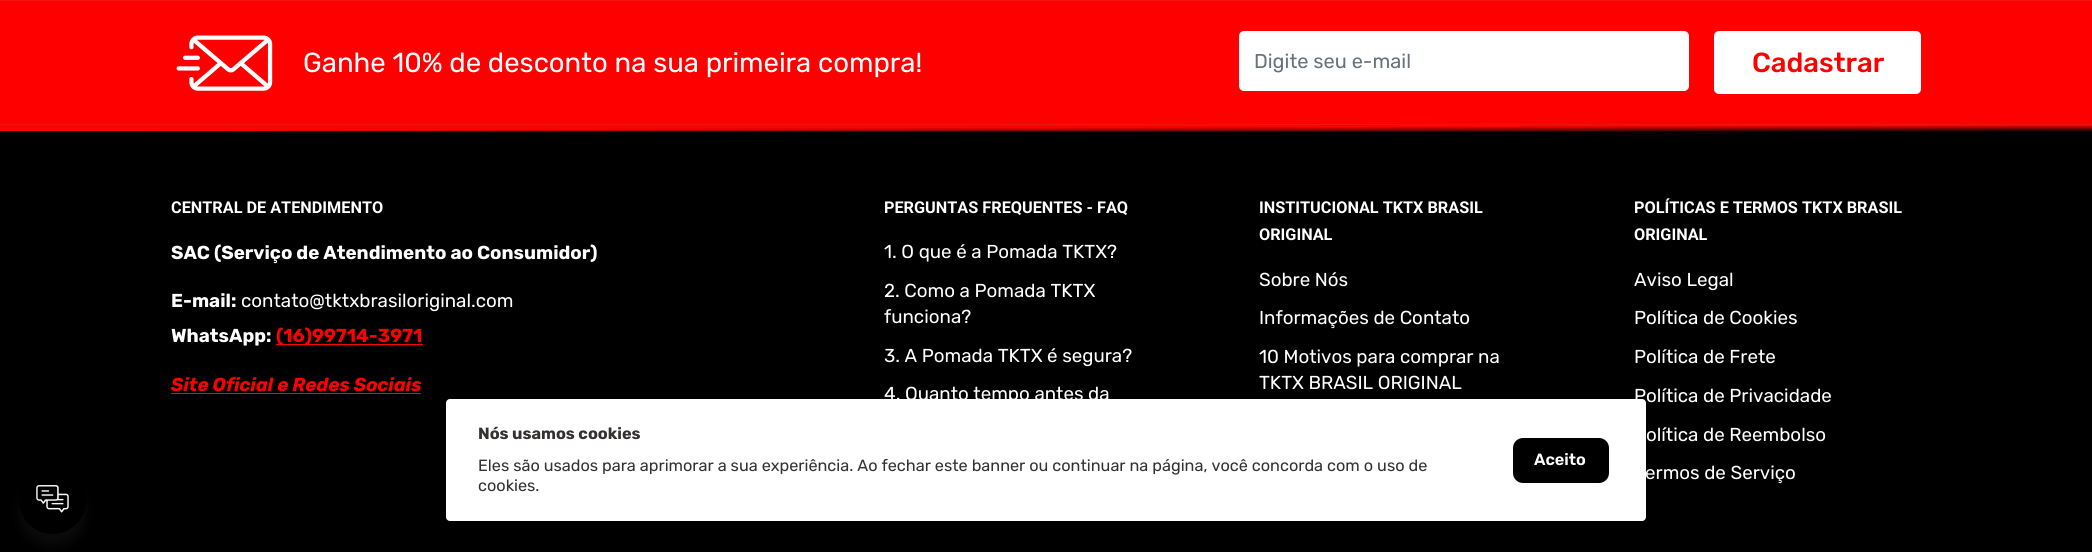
import math
import cairo

surface = cairo.ImageSurface(cairo.FORMAT_RGB24, 2092, 552)
ctx = cairo.Context(surface)
options = cairo.FontOptions()
options.set_hint_metrics(cairo.HINT_METRICS_OFF)
options.set_hint_style(cairo.HINT_STYLE_NONE)
ctx.set_font_options(options)
ctx.set_miter_limit(4)


def set_color(code):
    ctx.set_source_rgb(*(v / 255 for v in bytes.fromhex(code[-6:])))


def draw_text(x, y, s, family, size, color, bold=False, italic=False):
    ctx.select_font_face(family, cairo.FONT_SLANT_ITALIC if italic else cairo.FONT_SLANT_NORMAL, cairo.FONT_WEIGHT_BOLD if bold else cairo.FONT_WEIGHT_NORMAL)
    ctx.set_font_size(size)
    set_color(color)
    ctx.move_to(x, y)
    ctx.show_text(s)


def fill_rect(x, y, w, h, color):
    set_color(color)
    ctx.rectangle(x, y, w, h)
    ctx.fill()


def rounded_rect(x, y, w, h, r):
    ctx.new_sub_path()
    for i, (u, v) in enumerate([(x + w - r, y + h - r), (x + r, y + h - r), (x + r, y + r), (x + w - r, y + r)]):
        ctx.arc(u, v, r, i * math.pi / 2, (i + 1) * math.pi / 2)
    ctx.close_path()


def draw_shadow(x, y, w, h, r, blur, alpha):
    ctx.push_group_with_content(cairo.CONTENT_ALPHA)
    ctx.set_operator(cairo.OPERATOR_SOURCE)
    for i in range(15, -16, -2):
        e = blur * i / 6
        if min(w, h) + 2 * e > 0:
            ctx.set_source_rgba(0, 0, 0, alpha * math.erfc((i - 1) / 8.5) / 2)
            rounded_rect(x - e, y - e, w + 2 * e, h + 2 * e, max(0, min(r + e + blur * .6, min(w, h) / 2 + e)))
            ctx.fill()
    ctx.mask(ctx.pop_group())


def draw_image(path, x, y, w, h):
    ctx.save()
    ctx.set_source_surface(cairo.ImageSurface.create_from_png(path), x, y)
    ctx.rectangle(x, y, w, h)
    ctx.fill()
    ctx.restore()


set_color("#ff0000")
ctx.paint()
fill_rect(0, 0, 2092, 1, "#f11313")
fill_rect(0, 124, 2092, 1, "#f11313")
draw_image("assets/img1.png", 176, 35, 97, 56)
draw_text(303, 72, "Ganhe 10% de desconto na sua primeira compra!", "Rubik", 27.5, "#ffffff")
rounded_rect(1239, 31, 450, 60, 5)
ctx.fill()
draw_text(1254, 68, "Digite seu e-mail", "Rubik", 20, "#677279")
set_color("#ffffff")
rounded_rect(1714, 31, 207, 63, 5)
ctx.fill()
draw_text(1752, 72, "Cadastrar", "Rubik Medium", 27.5, "#ff0000")
gradient = cairo.RadialGradient(0, 0, 0, 0, 0, 1)
gradient.set_matrix(cairo.Matrix(1 / 5918, 0, 0, 1 / 18, -1 * 4185 / 5918, -1 * 138 / 18))
gradient.add_color_stop_rgba(0.2, 1, 0, 0, 1)
gradient.add_color_stop_rgba(0.5, 0, 0, 0, 1)
gradient.add_color_stop_rgba(0.8, 1, 0, 0, 1)
ctx.set_source(gradient)
ctx.rectangle(158, 125, 1934, 6)
ctx.fill()
fill_rect(0, 131, 2092, 421, "#000000")
draw_text(171, 213, "CENTRAL DE ATENDIMENTO", "Roboto", 16.25, "#ffffff", bold=True)
draw_text(171, 259, "SAC (Serviço de Atendimento ao Consumidor)", "Rubik", 18.75, "#ffffff", bold=True)
draw_text(171, 307, "E-mail:", "Rubik", 18.75, "#ffffff", bold=True)
draw_text(241, 307, "contato@tktxbrasiloriginal.com", "Rubik", 18.75, "#ffffff")
draw_text(171, 342, "WhatsApp:", "Rubik", 18.75, "#ffffff", bold=True)
fill_rect(276, 344, 147, 1, "#ff0000")
draw_text(276, 342, "(16)99714-3971", "Rubik", 18.75, "#ff0000", bold=True)
draw_text(171, 391, "Site Oficial e Redes Sociais", "Rubik", 18.75, "#ff0000", bold=True, italic=True)
fill_rect(171, 393, 250, 1, "#ff0000")
draw_text(884, 213, "PERGUNTAS FREQUENTES - FAQ", "Roboto", 16.25, "#ffffff", bold=True)
draw_text(884, 258, "1. O que é a Pomada TKTX?", "Rubik", 18.75, "#ffffff")
draw_text(884, 297, "2. Como a Pomada TKTX", "Rubik", 18.75, "#ffffff")
draw_text(884, 323, "funciona?", "Rubik", 18.75, "#ffffff")
draw_text(884, 362, "3. A Pomada TKTX é segura?", "Rubik", 18.75, "#ffffff")
draw_text(884, 400, "4. Quanto tempo antes da", "Rubik", 18.75, "#ffffff")
draw_text(1259, 213, "INSTITUCIONAL TKTX BRASIL", "Roboto", 16.25, "#ffffff", bold=True)
draw_text(1259, 240, "ORIGINAL", "Roboto", 16.25, "#ffffff", bold=True)
draw_text(1259, 286, "Sobre Nós", "Rubik", 18.75, "#ffffff")
draw_text(1259, 324, "Informações de Contato", "Rubik", 18.75, "#ffffff")
draw_text(1259, 363, "10 Motivos para comprar na", "Rubik", 18.75, "#ffffff")
draw_text(1259, 389, "TKTX BRASIL ORIGINAL", "Rubik", 18.75, "#ffffff")
draw_text(1634, 213, "POLÍTICAS E TERMOS TKTX BRASIL", "Roboto", 16.25, "#ffffff", bold=True)
draw_text(1634, 240, "ORIGINAL", "Roboto", 16.25, "#ffffff", bold=True)
draw_text(1634, 286, "Aviso Legal", "Rubik", 18.75, "#ffffff")
draw_text(1634, 324, "Política de Cookies", "Rubik", 18.75, "#ffffff")
draw_text(1634, 363, "Política de Frete", "Rubik", 18.75, "#ffffff")
draw_text(1634, 402, "Política de Privacidade", "Rubik", 18.75, "#ffffff")
draw_text(1646, 441, "olítica de Reembolso", "Rubik", 18.75, "#ffffff")
draw_text(1645, 479, "ermos de Serviço", "Rubik", 18.75, "#ffffff")
set_color("#000000")
draw_shadow(445, 399, 1203, 125, 5, 2.5, 0.1)
set_color("#ffffff")
rounded_rect(446, 399, 1200, 122, 4)
ctx.fill()
draw_text(478, 439, "Nós usamos cookies", "Rubik", 16.25, "#343131", bold=True)
draw_text(478, 471, "Eles são usados para aprimorar a sua experiência. Ao fechar este banner ou continuar na página, você concorda com o uso de", "Rubik", 16.25, "#343131")
draw_text(478, 491, "cookies.", "Rubik", 16.25, "#343131")
set_color("#000000")
rounded_rect(1513, 438, 96, 45, 10)
ctx.fill()
draw_text(1534, 465, "Aceito", "Rubik SemiBold", 16.25, "#ffffff")
set_color("#676767")
draw_shadow(19, 479, 67, 67, 33.5, 5, 0.1)
set_color("#000000")
rounded_rect(19, 466, 67, 68, 33.5)
ctx.fill()
draw_image("assets/img2.png", 36, 485, 33, 28)
surface.write_to_png("output.png")
